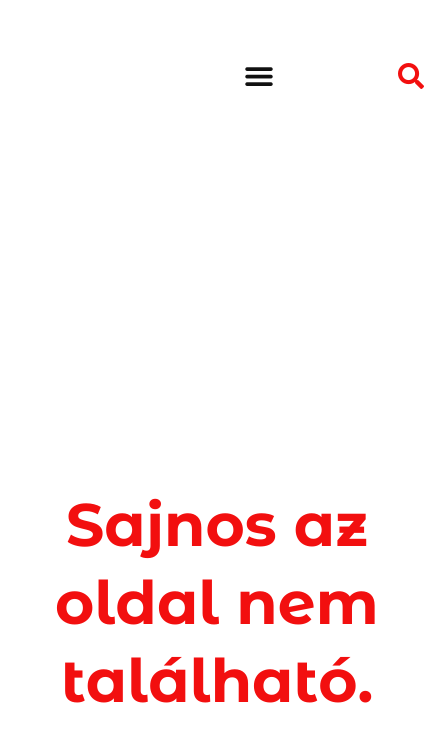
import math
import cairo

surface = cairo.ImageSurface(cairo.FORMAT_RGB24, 434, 734)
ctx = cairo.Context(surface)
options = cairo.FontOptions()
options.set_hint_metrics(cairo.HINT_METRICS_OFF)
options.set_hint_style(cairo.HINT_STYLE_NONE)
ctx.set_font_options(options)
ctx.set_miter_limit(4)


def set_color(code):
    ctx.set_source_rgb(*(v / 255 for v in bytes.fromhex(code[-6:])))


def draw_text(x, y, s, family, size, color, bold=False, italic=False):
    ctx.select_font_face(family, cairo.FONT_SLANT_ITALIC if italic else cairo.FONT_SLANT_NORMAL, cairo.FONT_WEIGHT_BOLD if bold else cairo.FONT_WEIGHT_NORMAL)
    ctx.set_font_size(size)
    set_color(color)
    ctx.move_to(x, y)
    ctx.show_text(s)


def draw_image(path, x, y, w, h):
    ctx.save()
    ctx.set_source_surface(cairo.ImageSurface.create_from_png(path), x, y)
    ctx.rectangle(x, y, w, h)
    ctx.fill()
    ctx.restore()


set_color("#ffffff")
ctx.paint()
draw_image("assets/img1.png", 245, 67, 28, 19)
draw_image("assets/img2.png", 398, 63, 26, 26)
draw_text(66, 546, "Sajnos az", "Montserrat Alternates", 60, "#f20f0f", bold=True)
draw_text(55, 624, "oldal nem", "Montserrat Alternates", 60, "#f20f0f", bold=True)
draw_text(61, 702, "található.", "Montserrat Alternates", 60, "#f20f0f", bold=True)
surface.write_to_png("output.png")
